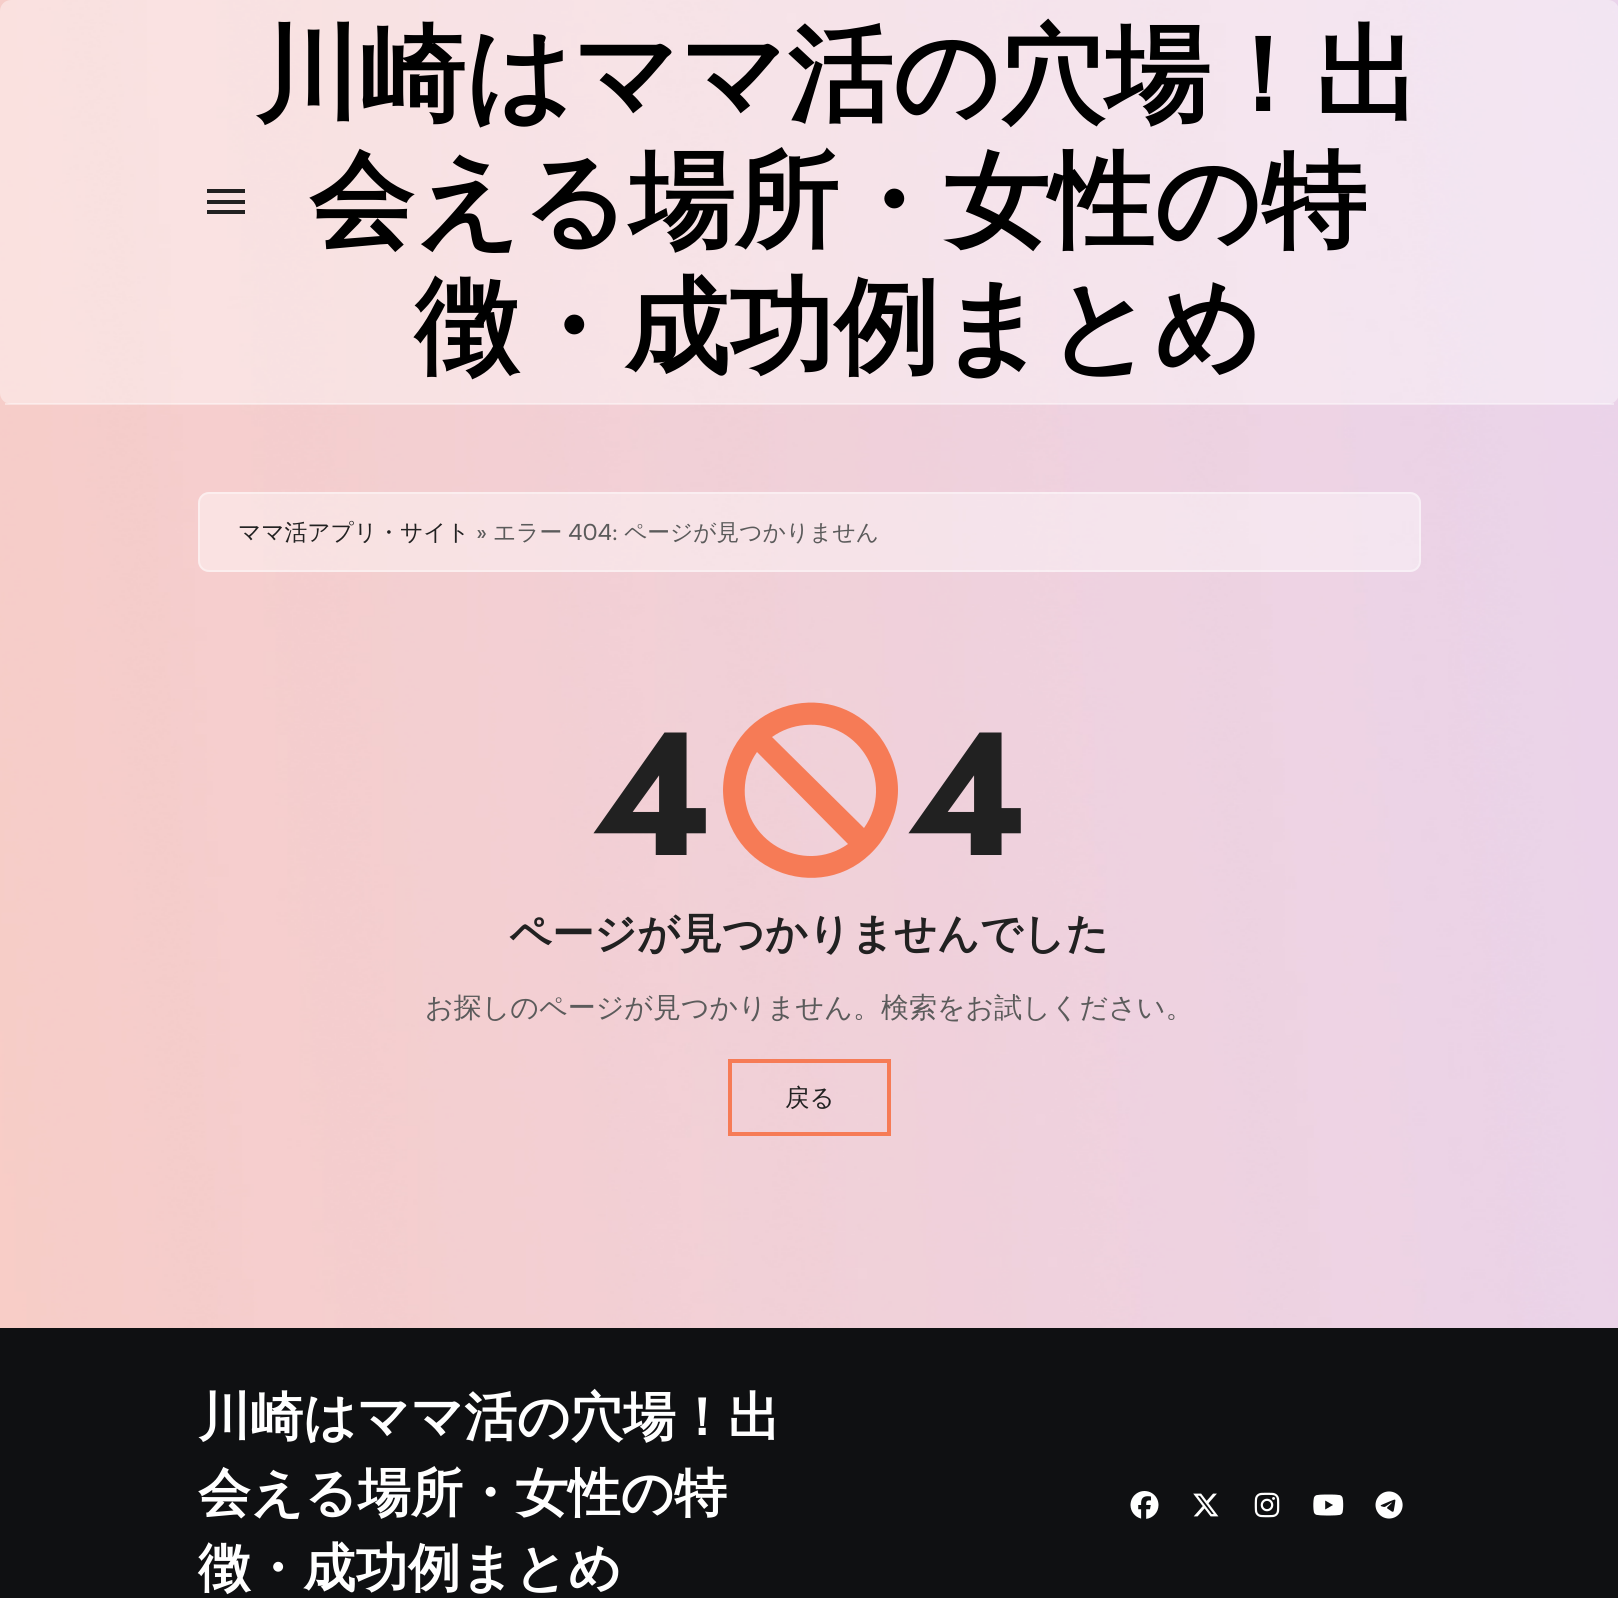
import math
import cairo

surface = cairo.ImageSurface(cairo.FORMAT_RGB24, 1618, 1598)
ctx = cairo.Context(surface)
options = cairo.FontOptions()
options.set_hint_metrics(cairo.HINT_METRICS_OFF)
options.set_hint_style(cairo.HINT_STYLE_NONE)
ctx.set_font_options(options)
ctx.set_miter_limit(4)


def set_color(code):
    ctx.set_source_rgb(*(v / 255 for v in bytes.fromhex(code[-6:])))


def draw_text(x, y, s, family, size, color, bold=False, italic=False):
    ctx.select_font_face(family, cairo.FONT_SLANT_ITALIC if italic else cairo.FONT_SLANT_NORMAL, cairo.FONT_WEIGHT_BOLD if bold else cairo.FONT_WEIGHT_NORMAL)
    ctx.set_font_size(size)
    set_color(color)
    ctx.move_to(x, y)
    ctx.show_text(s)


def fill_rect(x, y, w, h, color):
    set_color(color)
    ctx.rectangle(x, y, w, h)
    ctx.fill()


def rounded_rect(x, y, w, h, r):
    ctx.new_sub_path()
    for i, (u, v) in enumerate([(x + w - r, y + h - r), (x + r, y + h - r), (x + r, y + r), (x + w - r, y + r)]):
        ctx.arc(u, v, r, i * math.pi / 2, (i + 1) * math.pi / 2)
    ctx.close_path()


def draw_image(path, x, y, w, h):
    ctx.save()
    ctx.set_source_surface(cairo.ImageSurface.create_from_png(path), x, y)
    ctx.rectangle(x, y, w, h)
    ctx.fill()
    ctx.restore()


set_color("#ffffff")
ctx.paint()
draw_image("assets/img1.png", 0, 0, 1618, 1328)
ctx.set_source_rgba(1, 1, 1, 0.4)
rounded_rect(0, 0, 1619, 404, 11)
ctx.fill()
ctx.rectangle(5, 403, 1609, 2)
ctx.fill()
fill_rect(207, 189, 38, 4, "#212121")
fill_rect(207, 200, 38, 4, "#212121")
fill_rect(207, 210, 38, 4, "#212121")
draw_text(255, 111, "川崎はママ活の穴場！出", "WenQuanYi Zen Hei", 105, "#000000", bold=True)
draw_text(309, 237, "会える場所・女性の特", "WenQuanYi Zen Hei", 105, "#000000", bold=True)
draw_text(414, 363, "徴・成功例まとめ", "WenQuanYi Zen Hei", 105, "#000000", bold=True)
ctx.set_source_rgba(1, 1, 1, 0.4)
rounded_rect(198, 492, 1223, 80, 11)
ctx.fill()
rounded_rect(199, 493, 1221, 78, 10)
ctx.stroke()
draw_text(238, 540, "ママ活アプリ・サイト", "WenQuanYi Zen Hei Medium", 22.75, "#212121")
draw_text(476, 540, "»", "Onest", 22.75, "#5b5b5b")
draw_text(493, 540, "エラー", "WenQuanYi Zen Hei Medium", 22.75, "#5b5b5b")
draw_text(568, 540, "404:", "Onest", 22.75, "#5b5b5b")
draw_text(624, 540, "ページが見つかりません", "WenQuanYi Zen Hei Medium", 22.75, "#5b5b5b")
draw_text(591, 855, "4", "Jost", 175, "#212121", bold=True)
set_color("#f67b56")
ctx.new_path()
ctx.move_to(848, 844)
ctx.line_to(757, 752)
ctx.curve_to(750, 762, 746, 773, 745, 785)
ctx.curve_to(740, 840, 803, 876, 848, 844)
ctx.close_path()
ctx.move_to(864, 828)
ctx.curve_to(896, 783, 860, 720, 805, 725)
ctx.curve_to(793, 726, 782, 730, 772, 737)
ctx.close_path()
ctx.move_to(723, 790)
ctx.curve_to(724, 706, 829, 671, 880, 737)
ctx.curve_to(891, 752, 898, 771, 898, 790)
ctx.curve_to(898, 809, 891, 828, 880, 843)
ctx.curve_to(829, 910, 724, 874, 723, 790)
ctx.close_path()
ctx.fill()
draw_text(906, 855, "4", "Jost", 175, "#212121", bold=True)
draw_text(509, 948, "ページが見つかりませんでした", "WenQuanYi Zen Hei", 42, "#212121", bold=True)
draw_text(425, 1017, "お探しのページが見つかりません。検索をお試しください。", "WenQuanYi Zen Hei Medium", 28, "#5b5b5b")
ctx.rectangle(730, 1061, 159, 73)
set_color("#f67b56")
ctx.set_line_width(4)
ctx.stroke()
draw_text(785, 1106, "戻る", "WenQuanYi Zen Hei Medium", 24.5, "#212121")
fill_rect(0, 1328, 1618, 270, "#0f1012")
draw_text(198, 1435, "川崎はママ活の穴場！出", "WenQuanYi Zen Hei", 52.5, "#ffffff", bold=True)
draw_text(198, 1511, "会える場所・女性の特", "WenQuanYi Zen Hei", 52.5, "#ffffff", bold=True)
draw_text(198, 1586, "徴・成功例まとめ", "WenQuanYi Zen Hei", 52.5, "#ffffff", bold=True)
draw_image("assets/img2.png", 1130, 1491, 29, 28)
draw_image("assets/img3.png", 1193, 1493, 26, 24)
draw_image("assets/img4.png", 1254, 1492, 26, 26)
draw_image("assets/img5.png", 1313, 1494, 31, 22)
draw_image("assets/img6.png", 1375, 1491, 28, 28)
surface.write_to_png("output.png")
